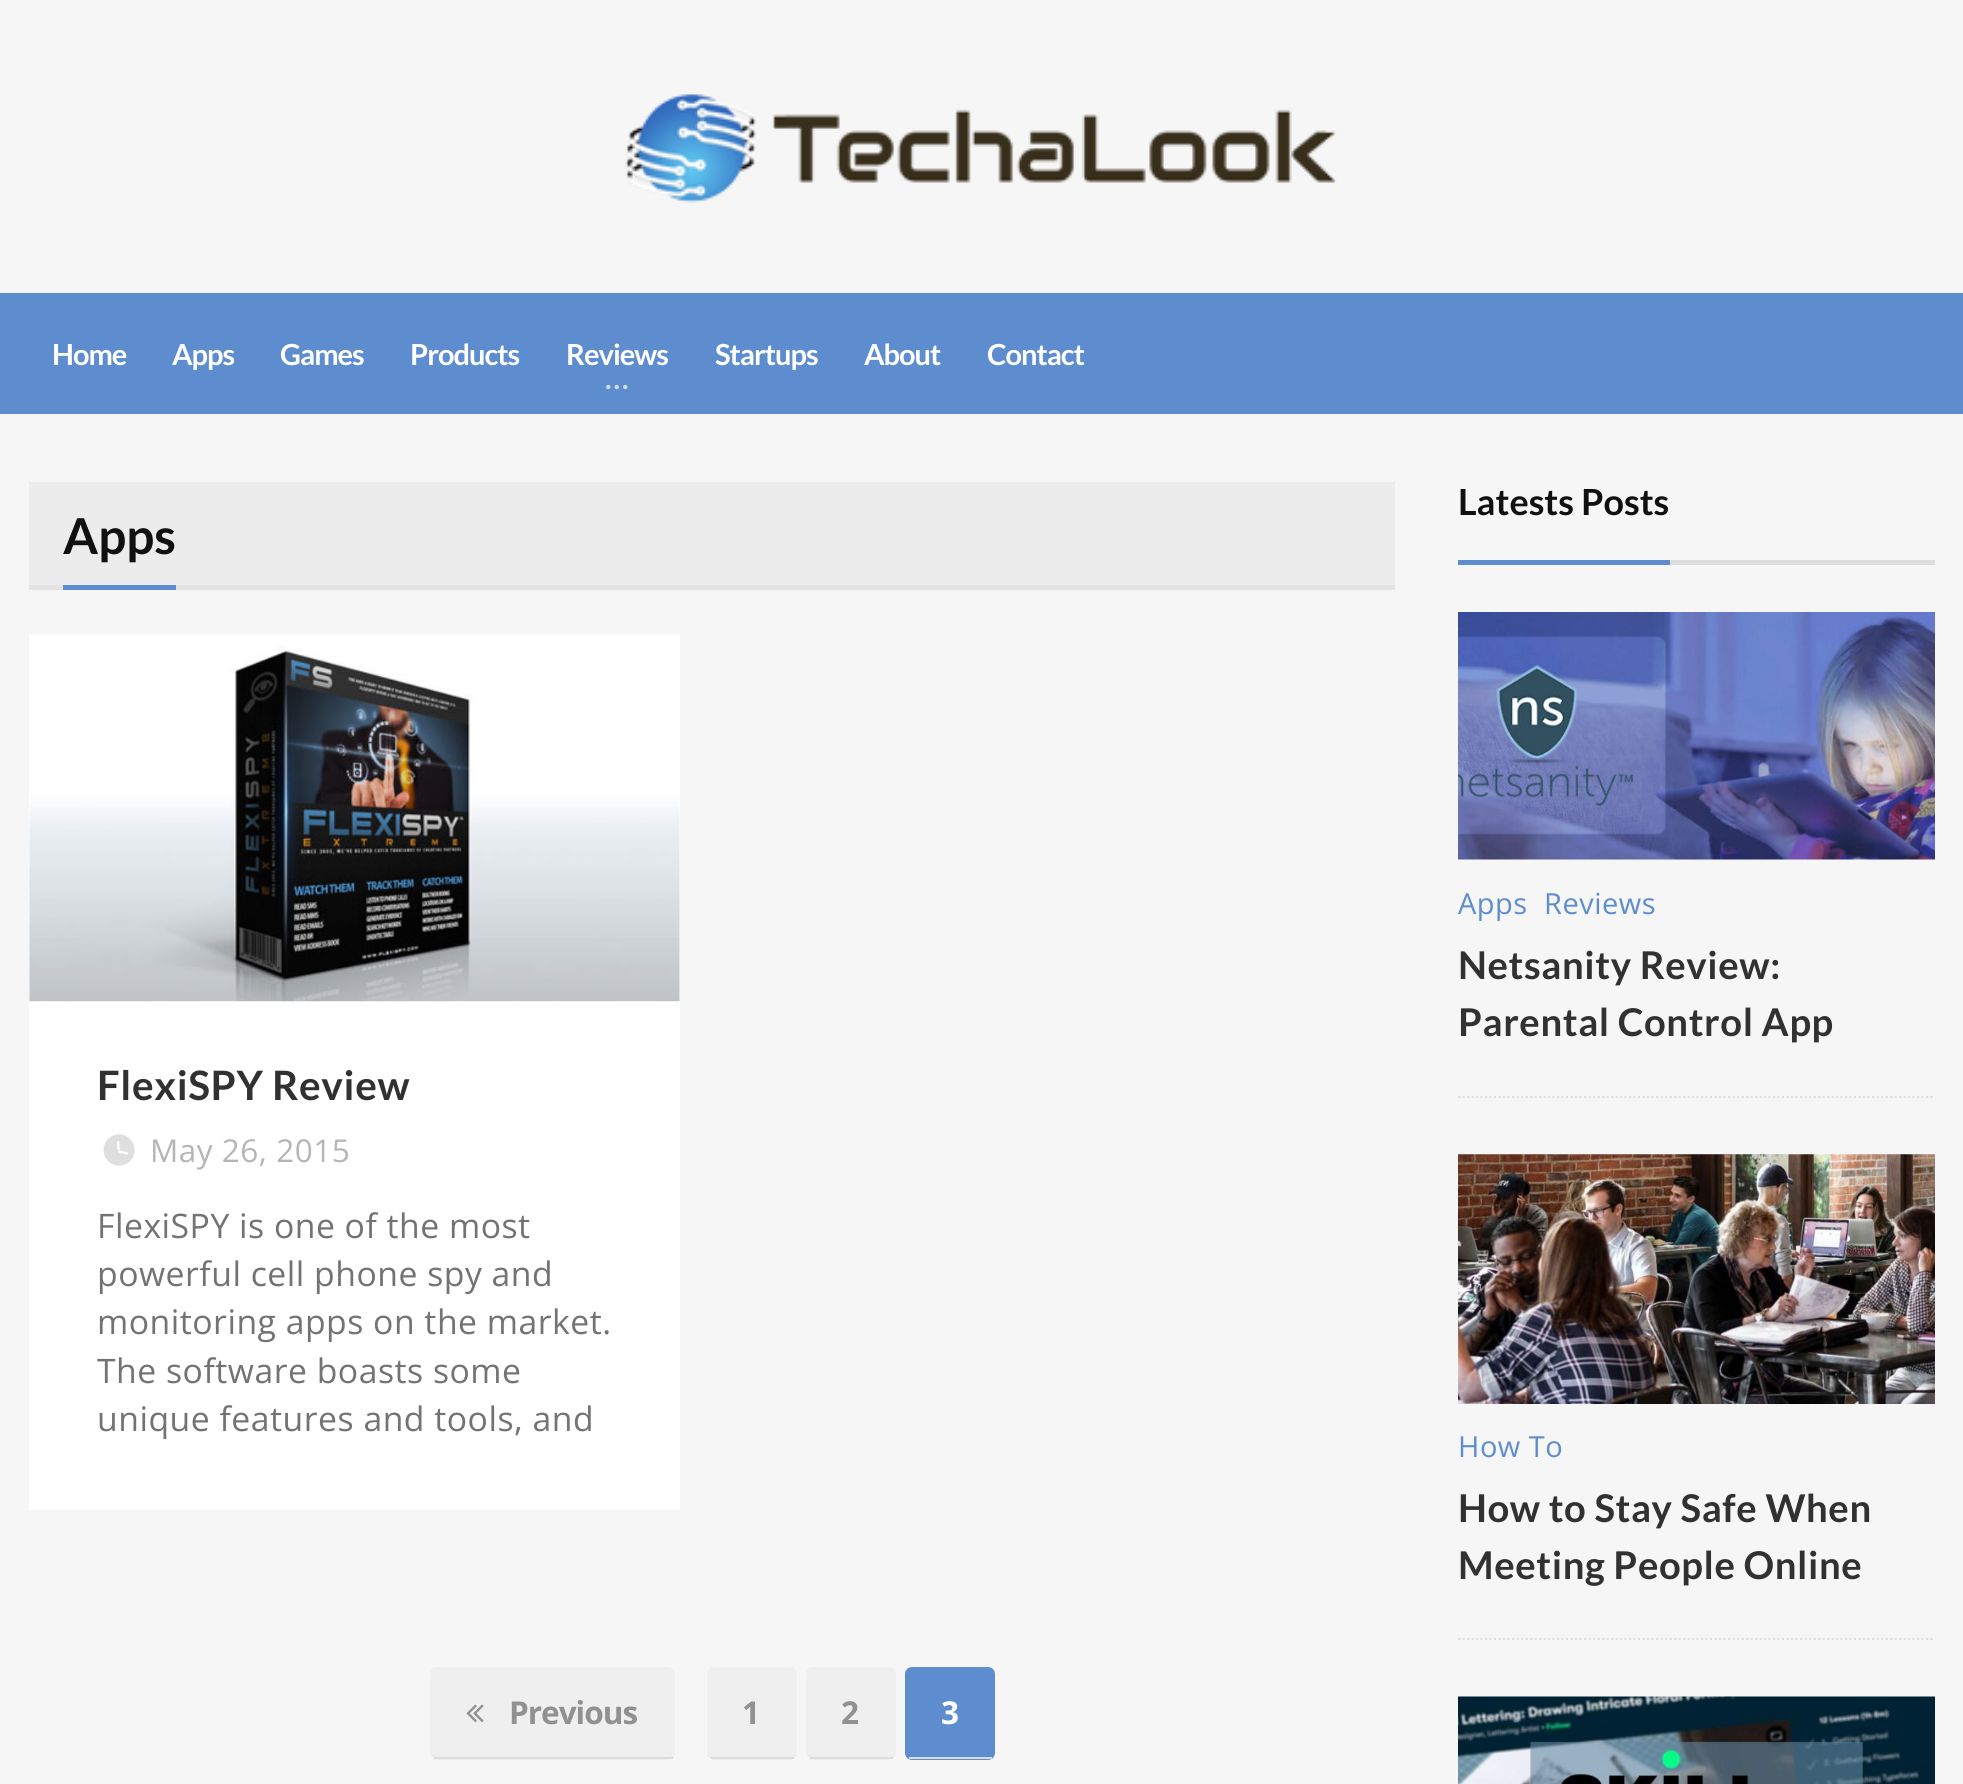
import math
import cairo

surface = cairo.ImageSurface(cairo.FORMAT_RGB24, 1963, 1784)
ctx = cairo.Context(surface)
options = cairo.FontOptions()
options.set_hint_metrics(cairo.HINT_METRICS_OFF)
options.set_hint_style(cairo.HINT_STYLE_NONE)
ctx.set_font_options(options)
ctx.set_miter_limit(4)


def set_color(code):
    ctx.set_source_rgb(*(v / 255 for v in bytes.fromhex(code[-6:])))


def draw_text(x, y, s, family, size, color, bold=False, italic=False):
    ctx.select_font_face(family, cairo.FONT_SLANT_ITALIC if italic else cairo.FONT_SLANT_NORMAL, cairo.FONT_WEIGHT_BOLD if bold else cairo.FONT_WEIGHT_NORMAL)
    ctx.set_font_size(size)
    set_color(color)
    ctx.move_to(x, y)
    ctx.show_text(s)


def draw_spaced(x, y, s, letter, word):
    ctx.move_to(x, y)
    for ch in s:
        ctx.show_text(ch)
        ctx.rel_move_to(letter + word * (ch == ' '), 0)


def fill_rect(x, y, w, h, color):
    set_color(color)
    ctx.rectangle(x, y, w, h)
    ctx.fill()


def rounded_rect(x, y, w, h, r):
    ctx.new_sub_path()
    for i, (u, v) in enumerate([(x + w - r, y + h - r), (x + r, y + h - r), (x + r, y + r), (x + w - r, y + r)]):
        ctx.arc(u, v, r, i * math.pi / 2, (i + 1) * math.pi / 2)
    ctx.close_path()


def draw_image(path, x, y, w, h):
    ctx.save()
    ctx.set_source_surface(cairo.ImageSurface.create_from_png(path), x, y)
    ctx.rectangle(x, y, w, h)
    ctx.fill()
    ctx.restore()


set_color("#f6f6f6")
ctx.paint()
draw_image("assets/img1.png", 625, 94, 712, 109)
fill_rect(0, 293, 1963, 121, "#5e8dcf")
ctx.select_font_face("Lato", cairo.FONT_SLANT_NORMAL, cairo.FONT_WEIGHT_BOLD)
ctx.set_font_size(29)
set_color("#ffffff")
draw_spaced(52, 365, "Home", -1, 0)
draw_spaced(172, 365, "Apps", -1, 0)
draw_spaced(280, 365, "Games", -1, 0)
draw_spaced(410, 365, "Products", -1, 0)
draw_spaced(566, 365, "Reviews", -1, 0)
set_color("#cfddf1")
draw_spaced(605, 389, "...", 2, 0)
set_color("#ffffff")
draw_spaced(715, 365, "Startups", -1, 0)
draw_spaced(864, 365, "About", -1, 0)
draw_spaced(987, 365, "Contact", -1, 0)
fill_rect(29, 482, 1366, 103, "#ececec")
fill_rect(29, 585, 1366, 5, "#e4e3e2")
fill_rect(63, 585, 113, 5, "#5e8dcf")
draw_text(63, 554, "Apps", "Lato", 49.5, "#101010", bold=True)
fill_rect(29, 635, 651, 875, "#ffffff")
draw_image("assets/img2.png", 29, 634, 651, 368)
ctx.set_font_size(40.5)
set_color("#313131")
draw_spaced(97, 1100, "FlexiSPY Review", 0.6, 0)
draw_image("assets/img3.png", 103, 1134, 32, 32)
ctx.select_font_face("Open Sans")
ctx.set_font_size(31.5)
set_color("#b5b5b5")
draw_spaced(150, 1162, "May 26, 2015", 0.5, 0)
ctx.set_font_size(33.75)
set_color("#737373")
draw_spaced(97, 1238, "FlexiSPY is one of the most", 0.5, 0)
draw_spaced(97, 1286, "powerful cell phone spy and", 0.5, 0)
draw_spaced(97, 1334, "monitoring apps on the market.", 0.5, 0)
draw_spaced(97, 1383, "The software boasts some", 0.5, 0)
draw_spaced(97, 1431, "unique features and tools, and", 0.5, 0)
set_color("#efefef")
rounded_rect(430, 1667, 245, 93, 7)
ctx.fill()
fill_rect(434, 1757, 239, 2, "#dcdcdc")
draw_image("assets/img4.png", 466, 1704, 18, 19)
ctx.select_font_face("Open Sans", cairo.FONT_SLANT_NORMAL, cairo.FONT_WEIGHT_BOLD)
ctx.set_font_size(31.5)
set_color("#919191")
draw_spaced(509, 1724, "Previous", -1, 0)
set_color("#efefef")
rounded_rect(707, 1667, 90, 93, 7)
ctx.fill()
fill_rect(711, 1757, 83, 2, "#dcdcdc")
set_color("#919191")
draw_spaced(742, 1724, "1", -1, 0)
set_color("#efefef")
rounded_rect(806, 1667, 90, 93, 7)
ctx.fill()
fill_rect(810, 1757, 83, 2, "#dcdcdc")
set_color("#919191")
draw_spaced(841, 1724, "2", -1, 0)
set_color("#5e8dcf")
rounded_rect(905, 1667, 90, 93, 7)
ctx.fill()
fill_rect(909, 1757, 83, 2, "#dcdcdc")
set_color("#ffffff")
draw_spaced(941, 1724, "3", -1, 0)
fill_rect(1670, 560, 265, 5, "#dddddd")
fill_rect(1458, 560, 212, 5, "#5e8dcf")
draw_text(1458, 515, "Latests Posts", "Lato", 36, "#101010", bold=True)
ctx.new_path()
ctx.move_to(1458, 1097)
ctx.line_to(1935, 1097)
set_color("#e0e0e0")
ctx.set_line_width(2.2)
ctx.set_dash([2.25, 2.25])
ctx.stroke()
draw_image("assets/img5.png", 1458, 612, 477, 248)
ctx.select_font_face("Open Sans")
ctx.set_font_size(29)
set_color("#5e8dcf")
draw_spaced(1458, 914, "Apps", 0.5, 0)
draw_spaced(1544, 914, "Reviews", 0.5, 0)
ctx.select_font_face("Lato", cairo.FONT_SLANT_NORMAL, cairo.FONT_WEIGHT_BOLD)
ctx.set_font_size(38.25)
set_color("#313131")
draw_spaced(1458, 979, "Netsanity Review:", 0.6, 0)
draw_spaced(1458, 1036, "Parental Control App", 0.6, 0)
ctx.new_path()
ctx.move_to(1458, 1639)
ctx.line_to(1935, 1639)
set_color("#e0e0e0")
ctx.stroke()
draw_image("assets/img6.png", 1458, 1154, 477, 250)
ctx.select_font_face("Open Sans")
ctx.set_font_size(29)
set_color("#5e8dcf")
draw_spaced(1458, 1457, "How To", 0.5, 0)
ctx.select_font_face("Lato", cairo.FONT_SLANT_NORMAL, cairo.FONT_WEIGHT_BOLD)
ctx.set_font_size(38.25)
set_color("#313131")
draw_spaced(1458, 1522, "How to Stay Safe When", 0.6, 0)
draw_spaced(1458, 1579, "Meeting People Online", 0.6, 0)
draw_image("assets/img7.png", 1458, 1696, 477, 88)
surface.write_to_png("output.png")
